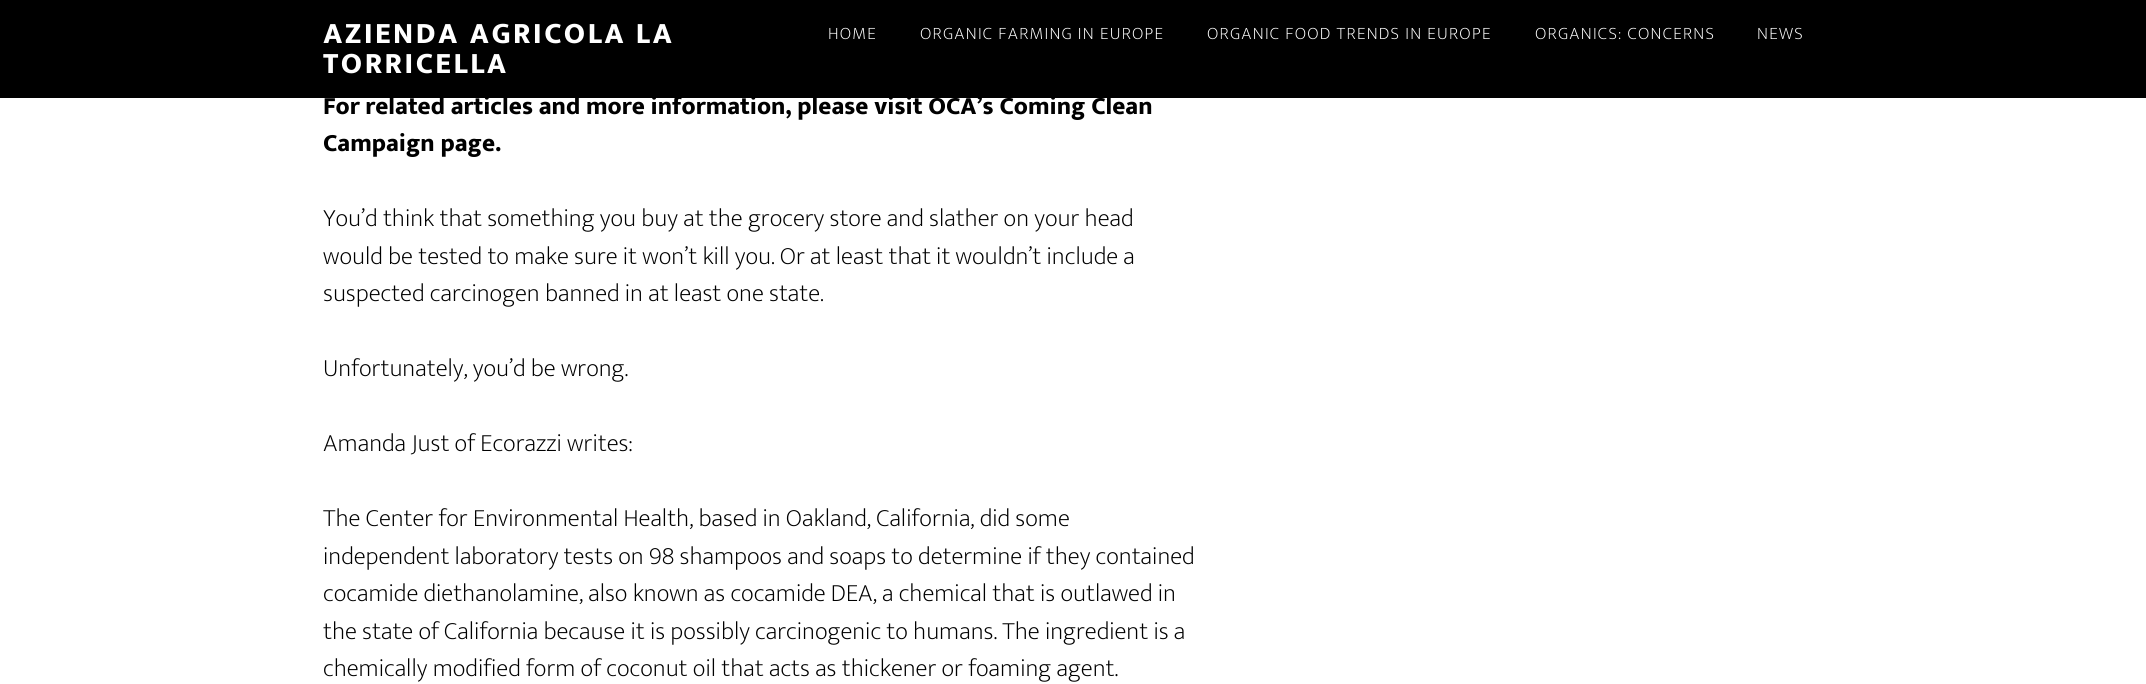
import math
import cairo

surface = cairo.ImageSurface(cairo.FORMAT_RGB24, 2146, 684)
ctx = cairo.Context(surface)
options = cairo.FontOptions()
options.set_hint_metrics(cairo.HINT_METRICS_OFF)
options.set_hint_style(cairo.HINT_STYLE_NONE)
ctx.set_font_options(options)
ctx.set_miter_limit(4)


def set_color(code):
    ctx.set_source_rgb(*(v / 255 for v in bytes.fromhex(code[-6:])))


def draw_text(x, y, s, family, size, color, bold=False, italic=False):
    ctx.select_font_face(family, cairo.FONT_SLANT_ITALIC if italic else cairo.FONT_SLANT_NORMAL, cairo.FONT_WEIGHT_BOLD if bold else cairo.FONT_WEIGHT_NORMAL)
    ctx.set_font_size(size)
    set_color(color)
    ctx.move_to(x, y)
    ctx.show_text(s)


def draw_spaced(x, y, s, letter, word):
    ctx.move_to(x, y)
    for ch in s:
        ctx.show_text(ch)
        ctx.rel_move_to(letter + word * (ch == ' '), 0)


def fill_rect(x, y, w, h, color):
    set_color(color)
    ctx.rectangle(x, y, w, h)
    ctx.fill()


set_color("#ffffff")
ctx.paint()
fill_rect(0, 0, 2146, 98, "#000000")
ctx.select_font_face("Ek Mukta ExtraBold")
ctx.set_font_size(30)
set_color("#ffffff")
draw_spaced(323, 43, "AZIENDA AGRICOLA LA", 2.5, 0)
draw_spaced(323, 73, "TORRICELLA", 2.5, 0)
ctx.select_font_face("Ek Mukta ExtraLight")
ctx.set_font_size(17.5)
draw_spaced(828, 39, "HOME", 1.25, 0)
draw_spaced(920, 39, "ORGANIC FARMING IN EUROPE", 1.25, 0)
draw_spaced(1207, 39, "ORGANIC FOOD TRENDS IN EUROPE", 1.25, 0)
draw_spaced(1535, 39, "ORGANICS: CONCERNS", 1.25, 0)
draw_spaced(1757, 39, "NEWS", 1.25, 0)
draw_text(323, 114, "For related articles and more information, please visit OCA’s Coming Clean", "Ek Mukta ExtraBold", 25, "#000000")
draw_text(323, 151, "Campaign page.", "Ek Mukta ExtraBold", 25, "#000000")
draw_text(323, 226, "You’d think that something you buy at the grocery store and slather on your head", "Ek Mukta ExtraLight", 25, "#000000")
draw_text(323, 264, "would be tested to make sure it won’t kill you. Or at least that it wouldn’t include a", "Ek Mukta ExtraLight", 25, "#000000")
draw_text(323, 301, "suspected carcinogen banned in at least one state.", "Ek Mukta ExtraLight", 25, "#000000")
draw_text(323, 376, "Unfortunately, you’d be wrong.", "Ek Mukta ExtraLight", 25, "#000000")
draw_text(323, 451, "Amanda Just of Ecorazzi writes:", "Ek Mukta ExtraLight", 25, "#000000")
draw_text(323, 526, "The Center for Environmental Health, based in Oakland, California, did some", "Ek Mukta ExtraLight", 25, "#000000")
draw_text(323, 564, "independent laboratory tests on 98 shampoos and soaps to determine if they contained", "Ek Mukta ExtraLight", 25, "#000000")
draw_text(323, 601, "cocamide diethanolamine, also known as cocamide DEA, a chemical that is outlawed in", "Ek Mukta ExtraLight", 25, "#000000")
draw_text(323, 639, "the state of California because it is possibly carcinogenic to humans. The ingredient is a", "Ek Mukta ExtraLight", 25, "#000000")
draw_text(323, 676, "chemically modified form of coconut oil that acts as thickener or foaming agent.", "Ek Mukta ExtraLight", 25, "#000000")
surface.write_to_png("output.png")
